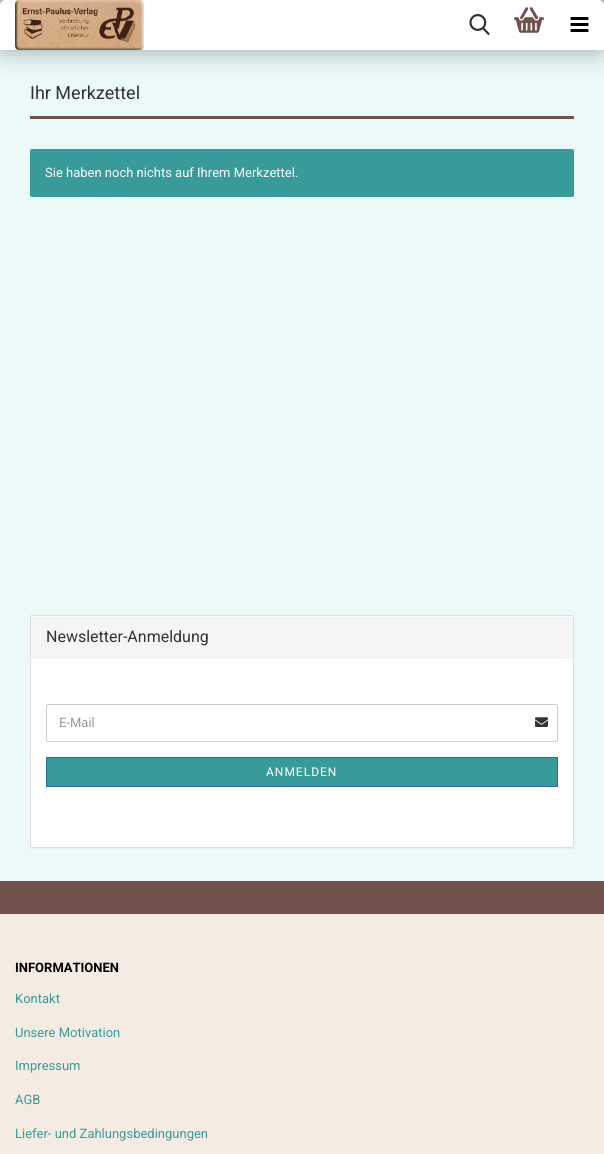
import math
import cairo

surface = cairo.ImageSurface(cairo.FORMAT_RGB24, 604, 1154)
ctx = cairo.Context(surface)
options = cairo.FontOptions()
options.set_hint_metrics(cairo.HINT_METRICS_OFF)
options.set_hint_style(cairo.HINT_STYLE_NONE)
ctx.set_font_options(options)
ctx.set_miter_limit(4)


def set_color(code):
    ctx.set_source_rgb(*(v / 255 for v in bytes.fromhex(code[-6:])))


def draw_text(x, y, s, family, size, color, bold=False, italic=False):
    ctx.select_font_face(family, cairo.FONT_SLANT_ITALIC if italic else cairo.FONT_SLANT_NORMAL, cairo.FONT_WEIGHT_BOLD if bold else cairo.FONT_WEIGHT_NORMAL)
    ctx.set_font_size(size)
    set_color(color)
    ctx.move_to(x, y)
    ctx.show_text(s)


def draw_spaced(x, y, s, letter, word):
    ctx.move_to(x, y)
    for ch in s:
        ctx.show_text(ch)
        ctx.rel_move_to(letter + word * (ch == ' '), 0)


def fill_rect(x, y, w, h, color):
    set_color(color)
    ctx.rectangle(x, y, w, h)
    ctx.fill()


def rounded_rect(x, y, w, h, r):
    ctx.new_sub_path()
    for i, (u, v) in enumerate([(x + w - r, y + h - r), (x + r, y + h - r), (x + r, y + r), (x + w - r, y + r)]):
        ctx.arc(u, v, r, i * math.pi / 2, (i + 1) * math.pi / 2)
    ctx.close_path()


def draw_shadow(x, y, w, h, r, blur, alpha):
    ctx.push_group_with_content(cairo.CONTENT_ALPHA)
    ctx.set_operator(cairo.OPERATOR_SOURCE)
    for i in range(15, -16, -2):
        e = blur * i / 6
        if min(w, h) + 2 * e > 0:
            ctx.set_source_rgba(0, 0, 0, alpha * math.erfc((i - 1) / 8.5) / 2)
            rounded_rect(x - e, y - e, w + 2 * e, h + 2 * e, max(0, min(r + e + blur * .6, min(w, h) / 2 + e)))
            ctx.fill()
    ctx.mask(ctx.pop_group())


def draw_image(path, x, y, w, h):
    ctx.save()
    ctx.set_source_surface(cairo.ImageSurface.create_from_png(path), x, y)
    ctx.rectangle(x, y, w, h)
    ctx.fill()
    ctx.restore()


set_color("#e3cfbe")
ctx.paint()
set_color("#ebf9f9")
rounded_rect(0, 0, 604, 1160, 6)
ctx.fill()
set_color("#000000")
draw_shadow(0, 0, 604, 50, 6, 12.5, 0.35)
set_color("#ffffff")
ctx.new_path()
ctx.move_to(6, 0)
ctx.line_to(598, 0)
ctx.curve_to(601.5, 0, 604, 2.5, 604, 6)
ctx.line_to(604, 50)
ctx.line_to(0, 50)
ctx.line_to(0, 6)
ctx.curve_to(0, 2.5, 2.5, 0, 6, 0)
ctx.close_path()
ctx.fill()
draw_image("assets/img1.png", 15, 0, 129, 50)
draw_image("assets/img2.png", 469, 14, 21, 21)
draw_image("assets/img3.png", 514, 7, 30, 26)
draw_image("assets/img4.png", 570, 17, 19, 15)
fill_rect(30, 116, 544, 3, "#70514c")
draw_text(30, 99, "Ihr Merkzettel", "Roboto", 18, "#333333")
set_color("#399b99")
rounded_rect(30, 149, 544, 48, 2)
ctx.fill()
draw_text(45, 177, "Sie haben noch nichts auf Ihrem Merkzettel.", "Roboto", 13, "#fefdfd")
set_color("#000000")
draw_shadow(30, 616, 544, 233, 2, 0.5, 0.05)
set_color("#ffffff")
rounded_rect(30.5, 615.5, 543, 232, 1.5)
ctx.fill_preserve()
set_color("#dddddd")
ctx.set_line_width(1)
ctx.stroke()
set_color("#f5f5f5")
ctx.new_path()
ctx.move_to(32, 616)
ctx.line_to(572, 616)
ctx.curve_to(572.5, 616, 573, 616.5, 573, 617)
ctx.line_to(573, 659)
ctx.line_to(31, 659)
ctx.line_to(31, 617)
ctx.curve_to(31, 616.5, 31.5, 616, 32, 616)
ctx.close_path()
ctx.fill()
set_color("#ffffff")
ctx.new_path()
ctx.move_to(32, 617)
ctx.line_to(572, 617)
ctx.curve_to(573, 617, 573, 617, 573, 618)
ctx.curve_to(573, 617, 573, 616, 572, 616)
ctx.line_to(32, 616)
ctx.line_to(31, 617)
ctx.line_to(31, 618)
ctx.close_path()
ctx.fill()
draw_text(46, 642, "Newsletter-Anmeldung", "Roboto", 16, "#333333")
rounded_rect(46.5, 704.5, 511, 37, 1.5)
set_color("#cccccc")
ctx.stroke()
draw_text(59, 727, "E-Mail", "Roboto", 13, "#999999")
draw_image("assets/img5.png", 535, 717, 13, 10)
set_color("#399b99")
ctx.rectangle(46.5, 757.5, 511, 29)
ctx.fill_preserve()
set_color("#2d6da3")
ctx.stroke()
ctx.set_font_size(12)
set_color("#fefdfd")
draw_spaced(266, 776, "ANMELDEN", 1, 0)
fill_rect(0, 914, 604, 240, "#f4ece2")
fill_rect(0, 881, 604, 33, "#70514c")
draw_text(15, 972, "INFORMATIONEN", "Roboto", 13, "#000000", bold=True)
draw_text(15, 1003, "Kontakt", "Roboto", 13, "#399b99")
draw_text(15, 1037, "Unsere Motivation", "Roboto", 13, "#399b99")
draw_text(15, 1070, "Impressum", "Roboto", 13, "#399b99")
draw_text(15, 1104, "AGB", "Roboto", 13, "#399b99")
draw_text(15, 1138, "Liefer- und Zahlungsbedingungen", "Roboto", 13, "#399b99")
surface.write_to_png("output.png")
